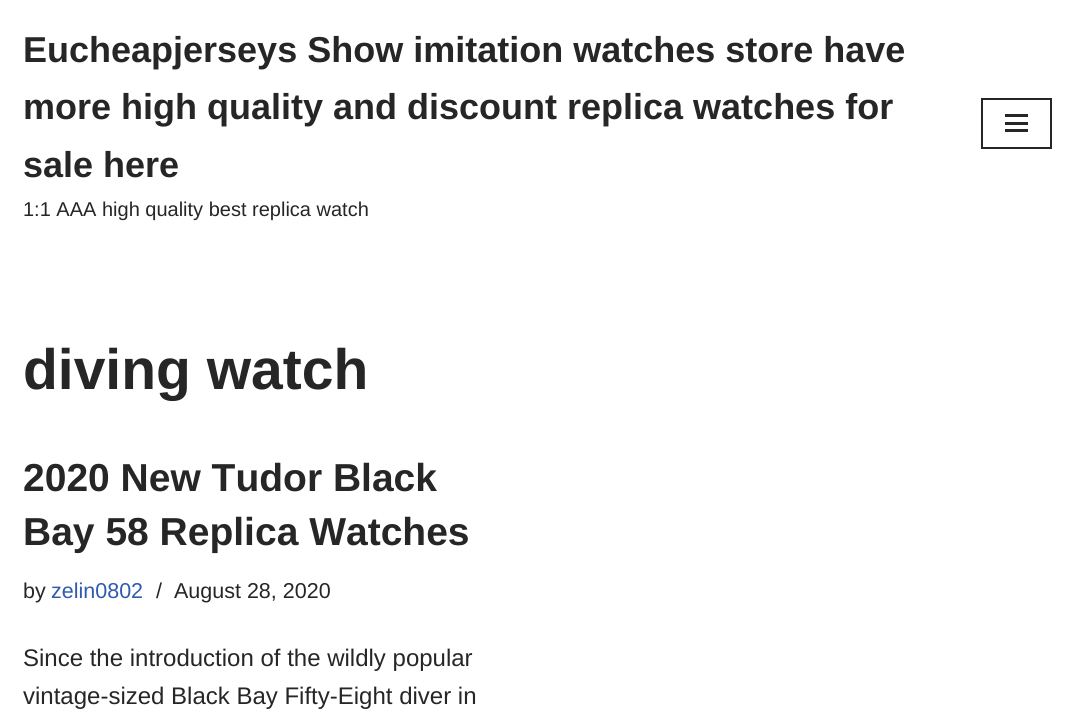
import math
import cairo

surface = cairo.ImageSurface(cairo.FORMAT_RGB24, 1074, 718)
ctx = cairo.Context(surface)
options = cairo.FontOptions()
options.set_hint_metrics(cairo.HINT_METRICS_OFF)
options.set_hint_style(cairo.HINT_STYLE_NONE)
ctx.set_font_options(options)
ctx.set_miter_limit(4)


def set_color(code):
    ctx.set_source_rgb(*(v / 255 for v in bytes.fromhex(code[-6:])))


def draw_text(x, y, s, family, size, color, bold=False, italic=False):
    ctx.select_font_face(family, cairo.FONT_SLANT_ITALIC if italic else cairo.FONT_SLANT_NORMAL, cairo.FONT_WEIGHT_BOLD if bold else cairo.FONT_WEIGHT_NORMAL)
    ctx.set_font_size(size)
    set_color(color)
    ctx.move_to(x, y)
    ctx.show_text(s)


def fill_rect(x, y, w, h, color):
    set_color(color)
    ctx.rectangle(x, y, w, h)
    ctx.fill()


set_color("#ffffff")
ctx.paint()
draw_text(23, 62, "Eucheapjerseys Show imitation watches store have", "Liberation Sans", 36, "#272626", bold=True)
draw_text(23, 119, "more high quality and discount replica watches for", "Liberation Sans", 36, "#272626", bold=True)
draw_text(23, 177, "sale here", "Liberation Sans", 36, "#272626", bold=True)
draw_text(23, 216, "1:1 AAA high quality best replica watch", "Liberation Sans", 20, "#272626")
ctx.rectangle(982, 99, 69, 49)
ctx.stroke()
fill_rect(1005, 114, 23, 3, "#272626")
fill_rect(1005, 122, 23, 3, "#272626")
fill_rect(1005, 129, 23, 3, "#272626")
draw_text(23, 389, "diving watch", "Liberation Sans", 57, "#272626", bold=True)
draw_text(23, 491, "2020 New Tudor Black", "Liberation Sans", 39, "#272626", bold=True)
draw_text(23, 545, "Bay 58 Replica Watches", "Liberation Sans", 39, "#272626", bold=True)
draw_text(23, 598, "by", "Liberation Sans", 21.5, "#272626")
draw_text(51, 598, "zelin0802", "Liberation Sans", 21.5, "#2f5aae")
draw_text(156, 598, "/", "Liberation Sans", 21.5, "#272626")
draw_text(174, 598, "August 28, 2020", "Liberation Sans", 21.5, "#272626")
draw_text(23, 666, "Since the introduction of the wildly popular", "Liberation Sans", 24, "#272626")
draw_text(23, 704, "vintage-sized Black Bay Fifty-Eight diver in", "Liberation Sans", 24, "#272626")
surface.write_to_png("output.png")
